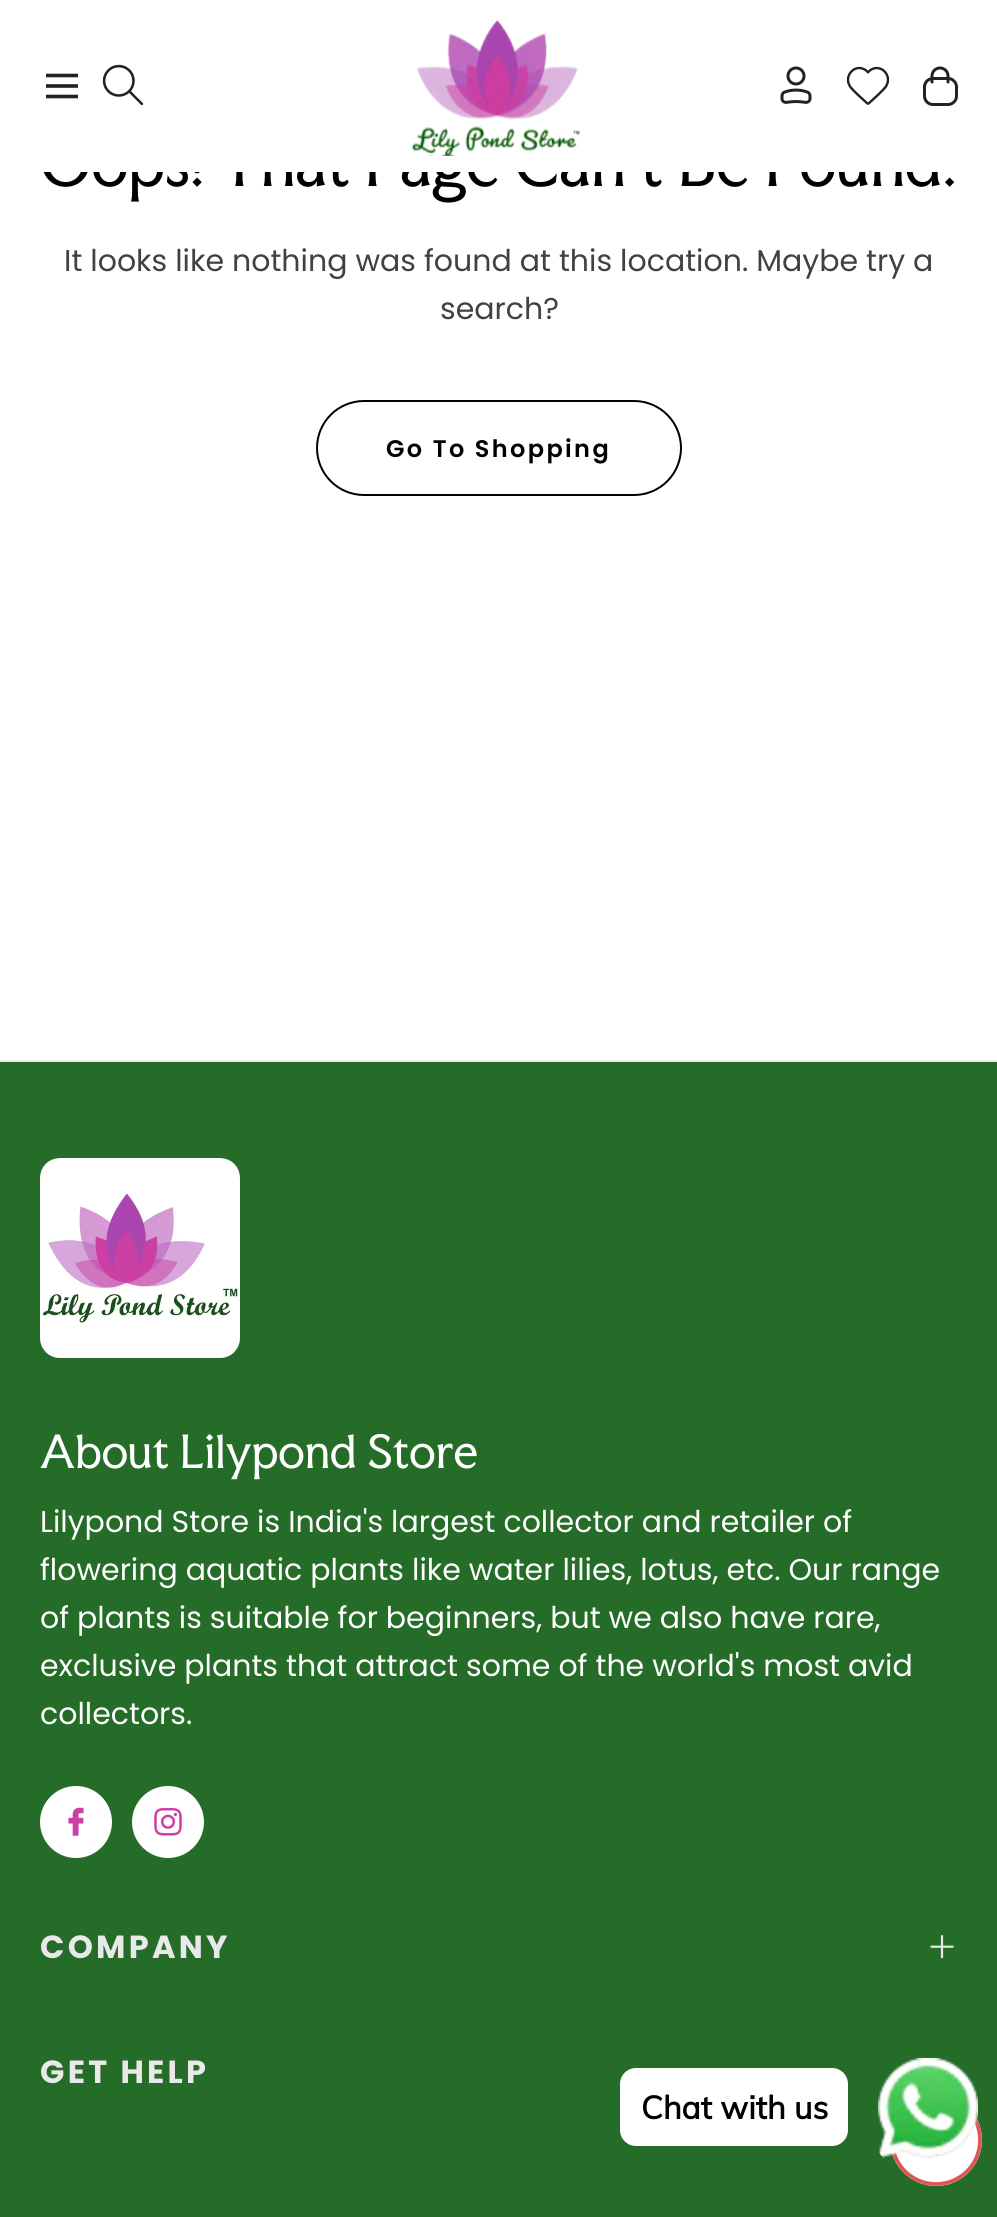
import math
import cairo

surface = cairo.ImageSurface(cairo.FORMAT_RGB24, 997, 2217)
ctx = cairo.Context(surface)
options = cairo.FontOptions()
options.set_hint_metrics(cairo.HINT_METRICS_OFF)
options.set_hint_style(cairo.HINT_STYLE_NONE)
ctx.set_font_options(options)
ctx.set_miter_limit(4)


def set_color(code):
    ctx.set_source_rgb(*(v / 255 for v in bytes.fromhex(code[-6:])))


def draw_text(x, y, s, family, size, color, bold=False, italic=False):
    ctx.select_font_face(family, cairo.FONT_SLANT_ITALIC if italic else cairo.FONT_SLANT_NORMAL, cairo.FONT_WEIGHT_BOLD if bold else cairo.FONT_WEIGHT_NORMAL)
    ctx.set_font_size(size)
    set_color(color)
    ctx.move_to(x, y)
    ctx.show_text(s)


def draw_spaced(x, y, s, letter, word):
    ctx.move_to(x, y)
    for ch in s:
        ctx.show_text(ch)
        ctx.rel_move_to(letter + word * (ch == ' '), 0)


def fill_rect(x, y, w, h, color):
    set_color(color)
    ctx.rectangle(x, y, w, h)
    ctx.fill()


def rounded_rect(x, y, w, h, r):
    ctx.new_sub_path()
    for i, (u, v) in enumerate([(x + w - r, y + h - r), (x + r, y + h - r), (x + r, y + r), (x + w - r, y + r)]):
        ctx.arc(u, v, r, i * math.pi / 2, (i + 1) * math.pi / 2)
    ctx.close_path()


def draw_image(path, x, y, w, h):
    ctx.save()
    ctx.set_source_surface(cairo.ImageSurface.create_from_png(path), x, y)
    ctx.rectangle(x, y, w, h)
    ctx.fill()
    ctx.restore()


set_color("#ffffff")
ctx.paint()
ctx.new_path()
ctx.move_to(46, 75.5)
ctx.line_to(78, 75.5)
ctx.move_to(46, 96.5)
ctx.line_to(78, 96.5)
ctx.close_path()
ctx.move_to(46, 86)
ctx.line_to(78, 86)
ctx.close_path()
set_color("#222222")
ctx.set_line_width(3.6)
ctx.stroke()
draw_image("assets/img1.png", 102, 64, 42, 42)
draw_image("assets/img2.png", 411, 20, 169, 136)
draw_image("assets/img3.png", 780, 66, 32, 38)
draw_image("assets/img4.png", 846, 66, 44, 39)
rounded_rect(924.5, 78.5, 32, 26, 8.5)
ctx.set_line_width(3)
ctx.stroke()
ctx.new_path()
ctx.move_to(948, 82)
ctx.line_to(948, 76)
ctx.curve_to(948, 71.5, 944.5, 68, 940, 68)
ctx.curve_to(935.5, 68, 932, 71.5, 932, 76)
ctx.line_to(932, 82)
ctx.set_line_cap(cairo.LINE_CAP_ROUND)
ctx.stroke()
draw_image("assets/img5.png", 43, 172, 912, 31)
draw_text(64, 271, "It looks like nothing was found at this location. Maybe try a", "Poppins", 30, "#414141")
draw_text(440, 319, "search?", "Poppins", 30, "#414141")
rounded_rect(317, 401, 364, 94, 47)
set_color("#000000")
ctx.set_line_width(2)
ctx.set_line_cap(cairo.LINE_CAP_BUTT)
ctx.stroke()
ctx.select_font_face("Poppins SemiBold")
ctx.set_font_size(24)
draw_spaced(386, 457, "Go To Shopping", 2.4, 0)
fill_rect(0, 1062, 997, 1155, "#246c28")
fill_rect(0, 1060, 997, 2, "#e9e9e9")
draw_image("assets/img6.png", 40, 1158, 200, 200)
draw_image("assets/img7.png", 40, 1433, 437, 47)
draw_text(40, 1532, "Lilypond Store is India's largest collector and retailer of", "Poppins", 30, "#ffffff")
draw_text(40, 1580, "flowering aquatic plants like water lilies, lotus, etc. Our range", "Poppins", 30, "#ffffff")
draw_text(40, 1628, "of plants is suitable for beginners, but we also have rare,", "Poppins", 30, "#ffffff")
draw_text(40, 1676, "exclusive plants that attract some of the world's most avid", "Poppins", 30, "#ffffff")
draw_text(40, 1724, "collectors.", "Poppins", 30, "#ffffff")
ctx.new_path()
ctx.arc(76, 1822, 36, 0, 2 * math.pi)
ctx.fill()
draw_image("assets/img8.png", 68, 1807, 16, 29)
ctx.arc(168, 1822, 36, 0, 2 * math.pi)
ctx.fill()
draw_image("assets/img9.png", 154, 1808, 28, 28)
ctx.select_font_face("Poppins", cairo.FONT_SLANT_NORMAL, cairo.FONT_WEIGHT_BOLD)
ctx.set_font_size(32)
set_color("#e9e9e9")
draw_spaced(40, 1958, "COMPANY", 3.25, 0)
draw_image("assets/img10.png", 930, 1935, 24, 24)
draw_spaced(40, 2083, "GET HELP", 3.25, 0)
draw_image("assets/img11.png", 942, 2061, 2, 2)
set_color("#ffffff")
ctx.arc(936, 2140, 46, 0, 2 * math.pi)
ctx.fill()
ctx.arc(936, 2140, 44, 0, 2 * math.pi)
ctx.set_source_rgba(0.114, 0.302, 0.263, 0.2)
ctx.set_line_width(4)
ctx.stroke()
ctx.new_path()
ctx.move_to(936, 2096)
ctx.curve_to(960.5, 2096, 980, 2115.5, 980, 2140)
ctx.curve_to(980, 2164.5, 960.5, 2184, 936, 2184)
ctx.curve_to(916, 2184, 899.5, 2171, 894, 2153)
set_color("#e35353")
ctx.set_line_width(3.6)
ctx.stroke()
ctx.new_path()
ctx.move_to(945, 2133)
ctx.line_to(936.5, 2125.5)
ctx.line_to(928, 2133)
ctx.move_to(936.5, 2125.5)
ctx.line_to(936.5, 2156)
set_color("#414141")
ctx.set_line_width(2.7)
ctx.stroke()
draw_image("assets/img12.png", 878, 2058, 100, 100)
set_color("#ffffff")
rounded_rect(620, 2068, 228, 78, 16)
ctx.fill()
draw_text(641, 2119, "Chat with us", "Muli", 32, "#000000", bold=True)
surface.write_to_png("output.png")
